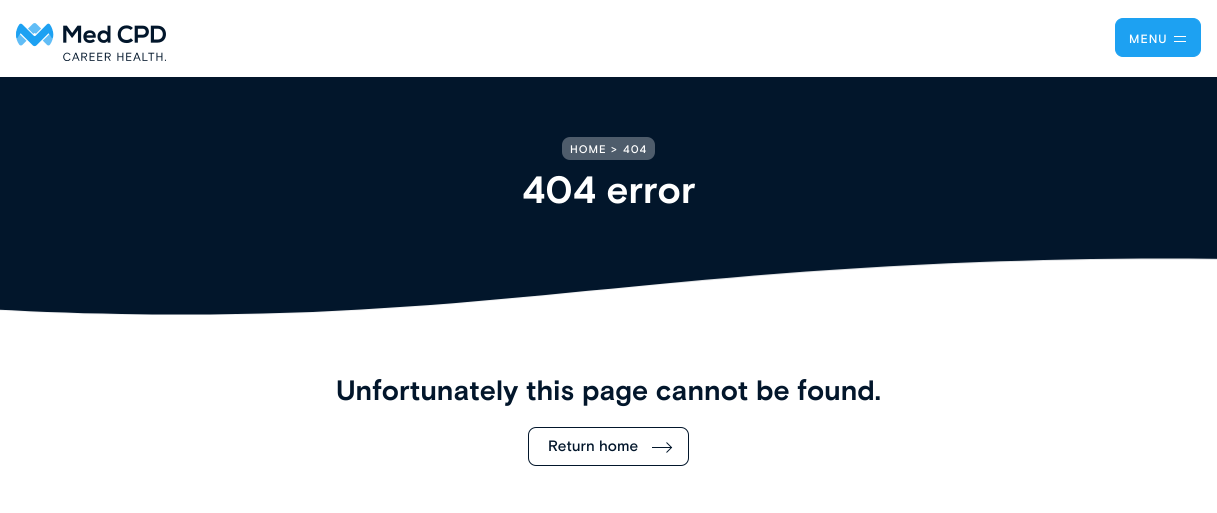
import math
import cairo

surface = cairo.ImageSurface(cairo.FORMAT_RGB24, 1217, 513)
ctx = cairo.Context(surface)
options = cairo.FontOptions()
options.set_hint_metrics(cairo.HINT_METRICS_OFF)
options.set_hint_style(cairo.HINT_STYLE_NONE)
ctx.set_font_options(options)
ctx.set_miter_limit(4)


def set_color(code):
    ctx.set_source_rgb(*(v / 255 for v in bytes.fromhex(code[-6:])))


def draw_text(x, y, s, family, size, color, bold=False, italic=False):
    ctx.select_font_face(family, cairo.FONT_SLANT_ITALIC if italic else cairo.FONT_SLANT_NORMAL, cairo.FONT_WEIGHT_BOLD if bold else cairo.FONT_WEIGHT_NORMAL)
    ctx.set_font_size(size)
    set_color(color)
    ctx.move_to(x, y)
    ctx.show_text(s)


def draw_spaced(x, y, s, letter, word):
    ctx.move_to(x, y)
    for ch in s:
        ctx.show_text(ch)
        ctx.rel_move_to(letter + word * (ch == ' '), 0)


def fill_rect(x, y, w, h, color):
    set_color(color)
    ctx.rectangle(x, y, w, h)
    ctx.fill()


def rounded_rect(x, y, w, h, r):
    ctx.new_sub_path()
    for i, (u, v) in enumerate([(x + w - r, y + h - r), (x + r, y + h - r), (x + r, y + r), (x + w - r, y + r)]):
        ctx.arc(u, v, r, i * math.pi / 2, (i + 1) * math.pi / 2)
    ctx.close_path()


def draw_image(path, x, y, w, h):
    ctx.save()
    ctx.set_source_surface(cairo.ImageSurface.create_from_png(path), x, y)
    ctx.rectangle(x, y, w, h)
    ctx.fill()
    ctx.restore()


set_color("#ffffff")
ctx.paint()
draw_image("assets/img1.png", 16, 23, 150, 38)
set_color("#1da1f2")
rounded_rect(1115.5, 18.5, 85, 38, 7.5)
ctx.fill_preserve()
ctx.set_line_width(1)
ctx.stroke()
ctx.select_font_face("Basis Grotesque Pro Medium")
ctx.set_font_size(12)
set_color("#ffffff")
draw_spaced(1129, 43, "MENU", 1, 0)
fill_rect(1174, 36, 12, 1, "#ffffff")
fill_rect(1174, 41, 12, 1, "#ffffff")
fill_rect(0, 77, 1217, 148, "#02162b")
set_color("#4e5c6b")
rounded_rect(562, 137, 93, 23, 8)
ctx.fill()
ctx.set_font_size(11)
set_color("#ffffff")
draw_spaced(570, 153, "HOME", 1, 0)
draw_spaced(611, 153, ">", 1, 0)
draw_spaced(623, 153, "404", 1, 0)
draw_text(522, 203, "404 error", "Basis Grotesque Pro", 38, "#ffffff", bold=True)
draw_image("assets/img2.png", 0, 225, 1217, 90)
draw_text(336, 400, "Unfortunately this page cannot be found.", "Basis Grotesque Pro", 28, "#02162b", bold=True)
rounded_rect(528.5, 427.5, 160, 38, 7.5)
ctx.stroke()
draw_text(548, 451, "Return home", "Basis Grotesque Pro Medium", 15, "#02162b")
ctx.new_path()
ctx.move_to(666.5, 442.5)
ctx.line_to(671.5, 447.5)
ctx.line_to(666.5, 452.5)
ctx.stroke()
fill_rect(652, 447, 20, 1, "#02162b")
surface.write_to_png("output.png")
